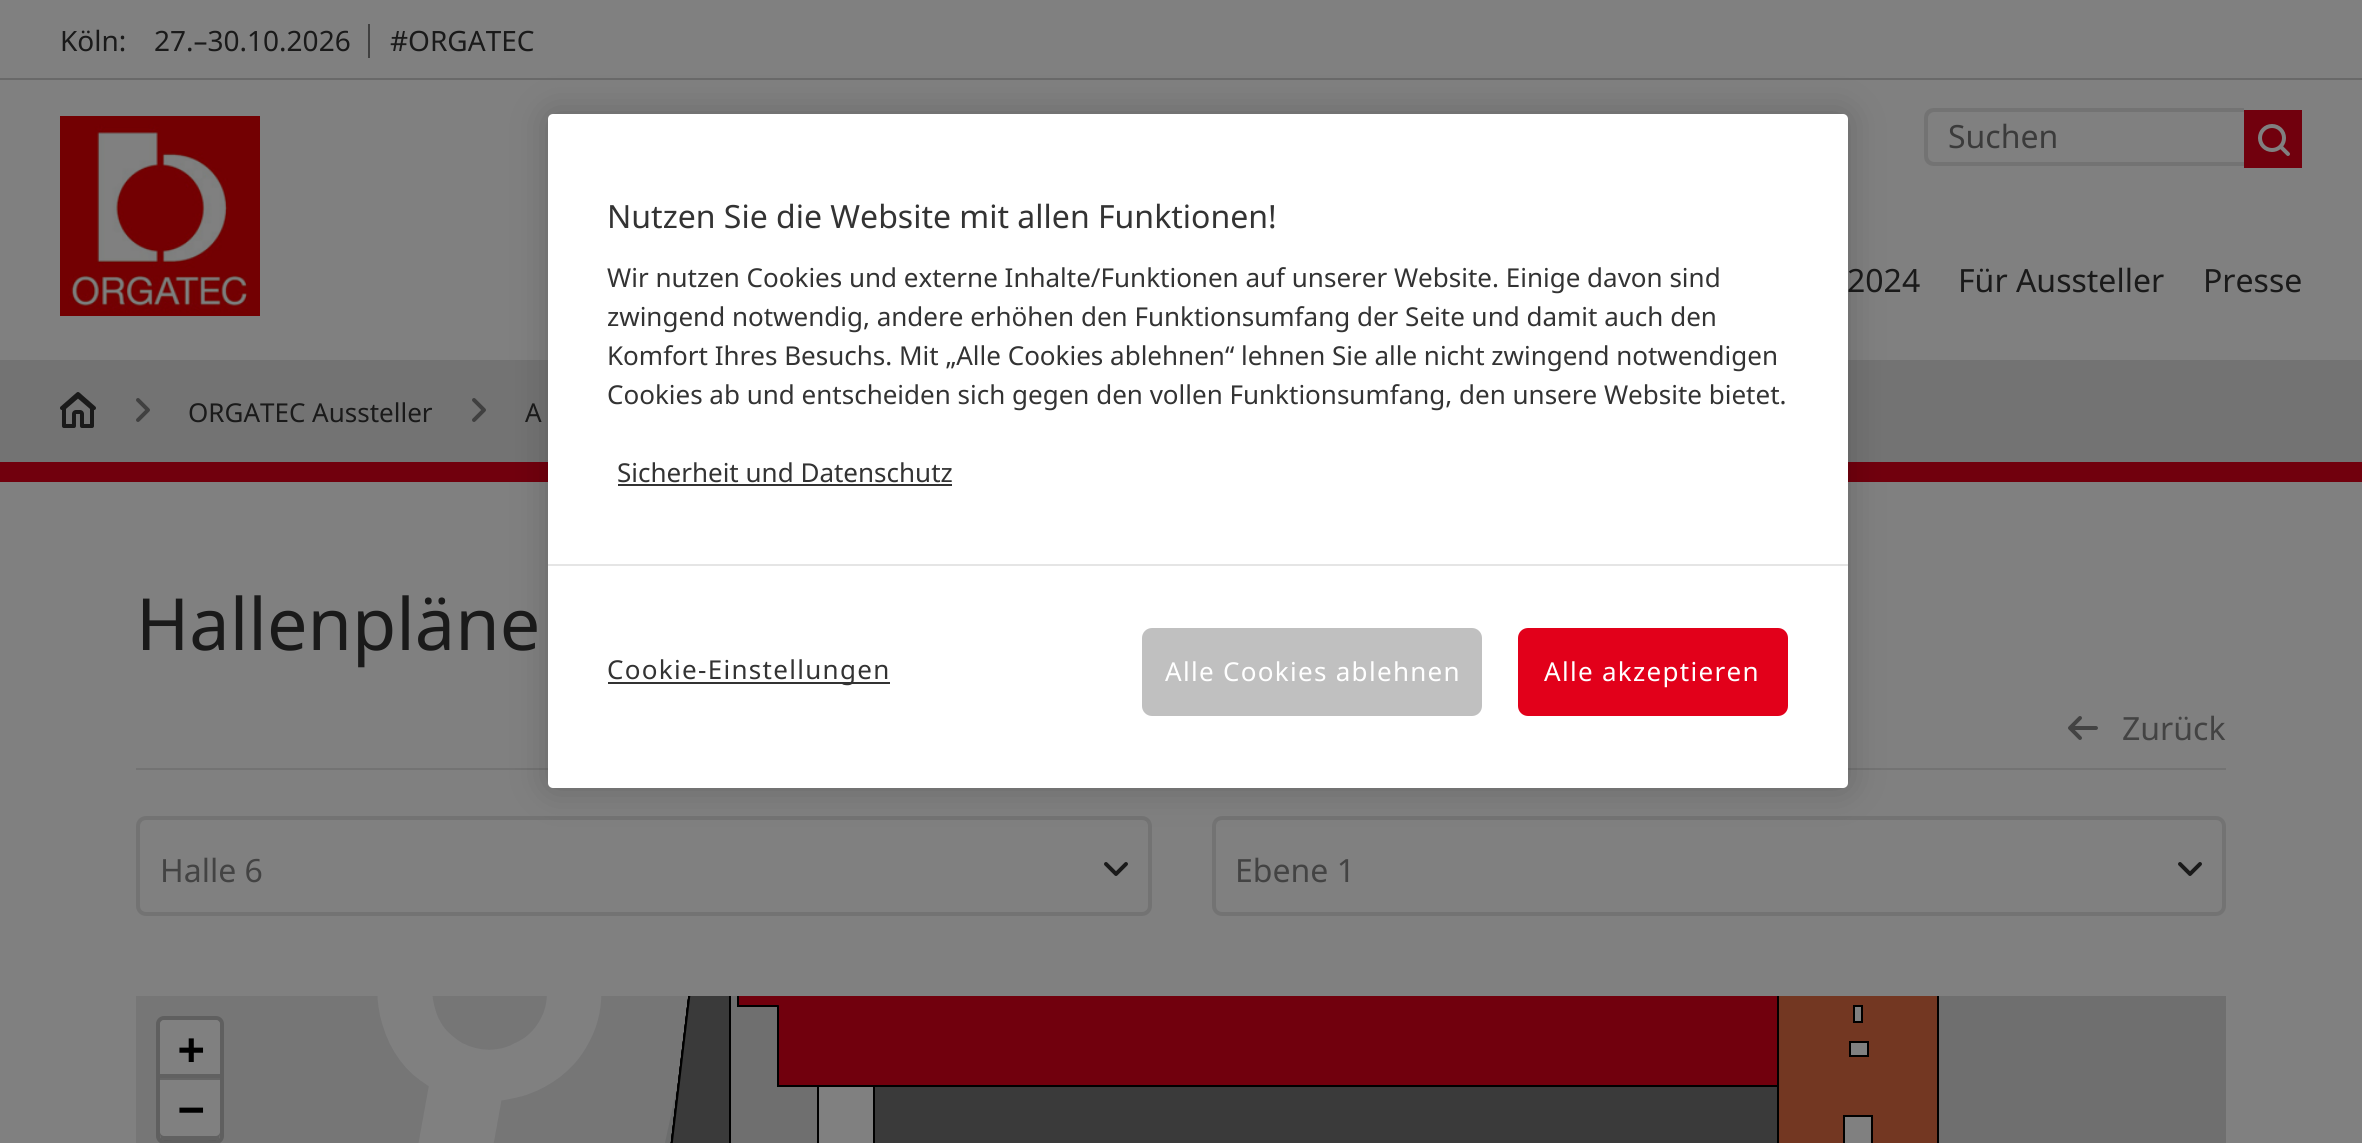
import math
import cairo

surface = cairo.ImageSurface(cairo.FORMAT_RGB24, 2362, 1143)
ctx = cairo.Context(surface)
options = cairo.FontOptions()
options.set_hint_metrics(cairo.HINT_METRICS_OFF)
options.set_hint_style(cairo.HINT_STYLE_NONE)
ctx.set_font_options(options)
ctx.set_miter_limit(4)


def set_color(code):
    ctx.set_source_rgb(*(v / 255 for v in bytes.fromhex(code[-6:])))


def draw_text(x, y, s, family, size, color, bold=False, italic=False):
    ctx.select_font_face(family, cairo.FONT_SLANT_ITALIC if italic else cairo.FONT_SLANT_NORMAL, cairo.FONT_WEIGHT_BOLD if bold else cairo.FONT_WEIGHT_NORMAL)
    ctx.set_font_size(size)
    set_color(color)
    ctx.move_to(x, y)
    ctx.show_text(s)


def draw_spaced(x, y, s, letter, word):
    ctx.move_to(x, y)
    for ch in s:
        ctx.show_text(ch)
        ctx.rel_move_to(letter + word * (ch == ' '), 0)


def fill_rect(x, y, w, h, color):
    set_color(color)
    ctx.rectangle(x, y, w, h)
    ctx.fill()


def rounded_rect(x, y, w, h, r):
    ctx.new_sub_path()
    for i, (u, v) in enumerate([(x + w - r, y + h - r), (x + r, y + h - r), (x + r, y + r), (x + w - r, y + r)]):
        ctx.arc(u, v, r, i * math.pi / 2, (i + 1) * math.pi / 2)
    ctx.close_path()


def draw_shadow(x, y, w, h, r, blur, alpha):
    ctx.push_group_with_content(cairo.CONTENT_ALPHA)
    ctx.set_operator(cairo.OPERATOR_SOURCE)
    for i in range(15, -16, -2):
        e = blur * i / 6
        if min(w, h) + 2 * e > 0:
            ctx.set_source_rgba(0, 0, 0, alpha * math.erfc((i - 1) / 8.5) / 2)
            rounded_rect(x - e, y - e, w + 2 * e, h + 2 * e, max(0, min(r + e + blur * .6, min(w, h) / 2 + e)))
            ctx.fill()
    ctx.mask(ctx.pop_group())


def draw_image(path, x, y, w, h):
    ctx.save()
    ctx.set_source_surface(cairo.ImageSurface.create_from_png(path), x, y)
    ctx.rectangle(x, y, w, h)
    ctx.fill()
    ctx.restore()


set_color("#808080")
ctx.paint()
draw_text(60, 51, "Köln:", "Noto Sans", 28, "#1a1a1a")
draw_text(154, 51, "27.–30.10.2026", "Noto Sans", 28, "#1a1a1a")
fill_rect(368, 24, 2, 34, "#404040")
draw_text(390, 51, "#ORGATEC", "Noto Sans", 28, "#1a1a1a")
fill_rect(0, 78, 2362, 2, "#696969")
draw_image("assets/img1.png", 60, 116, 200, 200)
set_color("#737373")
ctx.set_fill_rule(cairo.FILL_RULE_EVEN_ODD)
ctx.new_path()
ctx.move_to(1934, 108)
ctx.line_to(2244, 108)
ctx.line_to(2244, 166)
ctx.line_to(1934, 166)
ctx.curve_to(1928, 166, 1924, 162, 1924, 156)
ctx.line_to(1924, 118)
ctx.curve_to(1924, 112, 1928, 108, 1934, 108)
ctx.close_path()
ctx.move_to(1934, 112)
ctx.line_to(2244, 112)
ctx.line_to(2244, 162)
ctx.line_to(1934, 162)
ctx.curve_to(1931, 162, 1928, 159, 1928, 156)
ctx.line_to(1928, 118)
ctx.curve_to(1928, 115, 1931, 112, 1934, 112)
ctx.close_path()
ctx.fill()
draw_text(1948, 148, "Suchen", "Noto Sans", 32, "#3b3b3b")
fill_rect(2244, 110, 58, 58, "#71000d")
draw_image("assets/img2.png", 2258, 124, 32, 32)
draw_text(1847, 292, "2024", "Noto Sans", 32, "#1a1a1a")
draw_text(1958, 292, "Für Aussteller", "Noto Sans", 32, "#1a1a1a")
draw_text(2203, 292, "Presse", "Noto Sans", 32, "#1a1a1a")
fill_rect(0, 360, 2362, 102, "#737373")
fill_rect(0, 462, 2362, 20, "#71000d")
fill_rect(136, 768, 2090, 2, "#737373")
rounded_rect(138, 818, 1012, 96, 8)
ctx.set_line_width(4)
ctx.stroke()
rounded_rect(1214, 818, 1010, 96, 8)
ctx.stroke()
set_color("#000000")
draw_shadow(548, 114, 1300, 674, 5, 18, 0.2)
set_color("#ffffff")
rounded_rect(548, 114, 1300, 674, 5)
ctx.fill()
draw_text(607, 228, "Nutzen Sie die Website mit allen Funktionen!", "Noto Sans", 32, "#333333")
draw_text(607, 287, "Wir nutzen Cookies und externe Inhalte/Funktionen auf unserer Website. Einige davon sind", "Noto Sans", 26, "#333333")
draw_text(607, 326, "zwingend notwendig, andere erhöhen den Funktionsumfang der Seite und damit auch den", "Noto Sans", 26, "#333333")
draw_text(607, 365, "Komfort Ihres Besuchs. Mit „Alle Cookies ablehnen“ lehnen Sie alle nicht zwingend notwendigen", "Noto Sans", 26, "#333333")
draw_text(607, 404, "Cookies ab und entscheiden sich gegen den vollen Funktionsumfang, den unsere Website bietet.", "Noto Sans", 26, "#333333")
draw_text(617, 482, "Sicherheit und Datenschutz", "Noto Sans", 26, "#333333")
fill_rect(618, 484, 334, 2, "#333333")
fill_rect(548, 564, 1300, 2, "#e5e5e5")
fill_rect(608, 682, 282, 2, "#333333")
draw_spaced(607, 679, "Cookie-Einstellungen", 1.3, 0)
set_color("#c0c0c0")
rounded_rect(1142, 628, 340, 88, 10)
ctx.fill()
set_color("#ffffff")
draw_spaced(1165, 681, "Alle Cookies ablehnen", 1.3, 0)
set_color("#e2001a")
rounded_rect(1519, 629, 268, 86, 9)
ctx.fill_preserve()
ctx.set_line_width(2)
ctx.stroke()
set_color("#ffffff")
draw_spaced(1544, 681, "Alle akzeptieren", 1.3, 0)
draw_image("assets/img3.png", 136, 398, 14, 24)
draw_image("assets/img4.png", 60, 392, 36, 36)
draw_image("assets/img3.png", 472, 398, 14, 24)
draw_text(188, 422, "ORGATEC Aussteller", "Noto Sans", 26, "#1a1a1a")
draw_text(525, 422, "A", "Noto Sans", 26, "#1a1a1a")
draw_text(136, 650, "Hallenpläne", "Noto Sans", 72, "#1a1a1a")
draw_image("assets/img5.png", 2068, 716, 30, 24)
draw_text(2122, 740, "Zurück", "Noto Sans", 32, "#434343")
draw_text(160, 882, "Halle 6", "Noto Sans", 32, "#434343")
draw_image("assets/img6.png", 1104, 862, 24, 14)
draw_text(1235, 882, "Ebene 1", "Noto Sans", 32, "#434343")
draw_image("assets/img6.png", 2178, 862, 24, 14)
fill_rect(731, 996, 1495, 147, "#6f6f6f")
draw_image("assets/img7.png", 136, 996, 552, 147)
draw_image("assets/img8.png", 670, 996, 1107, 147)
draw_image("assets/img9.png", 737, 996, 1202, 147)
draw_image("assets/img10.png", 1843, 1005, 30, 138)
rounded_rect(158, 1018, 64, 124, 6)
set_color("#5f5f5f")
ctx.set_line_width(4)
ctx.stroke()
set_color("#808080")
ctx.new_path()
ctx.move_to(164, 1020)
ctx.line_to(216, 1020)
ctx.curve_to(218, 1020, 220, 1022, 220, 1024)
ctx.line_to(220, 1080)
ctx.line_to(160, 1080)
ctx.line_to(160, 1024)
ctx.curve_to(160, 1022, 162, 1020, 164, 1020)
ctx.close_path()
ctx.fill()
fill_rect(160, 1074, 60, 4, "#616161")
fill_rect(160, 1078, 60, 2, "#666666")
draw_text(178, 1064, "+", "DejaVu Sans Mono", 44, "#000000", bold=True)
set_color("#808080")
ctx.new_path()
ctx.move_to(160, 1080)
ctx.line_to(220, 1080)
ctx.line_to(220, 1136)
ctx.curve_to(220, 1138, 218, 1140, 216, 1140)
ctx.line_to(164, 1140)
ctx.curve_to(162, 1140, 160, 1138, 160, 1136)
ctx.close_path()
ctx.fill()
ctx.set_source_rgba(0.102, 0.102, 0.102, 0.3)
ctx.set_fill_rule(cairo.FILL_RULE_WINDING)
ctx.new_path()
ctx.move_to(160, 1132)
ctx.curve_to(160, 1142, 162, 1140, 173, 1140)
ctx.line_to(207, 1140)
ctx.curve_to(218, 1140, 220, 1142, 220, 1132)
ctx.curve_to(220, 1134, 218, 1136, 216, 1136)
ctx.line_to(164, 1136)
ctx.curve_to(162, 1136, 160, 1134, 160, 1132)
ctx.close_path()
ctx.fill()
draw_text(178, 1124, "−", "DejaVu Sans Mono", 44, "#000000", bold=True)
surface.write_to_png("output.png")
